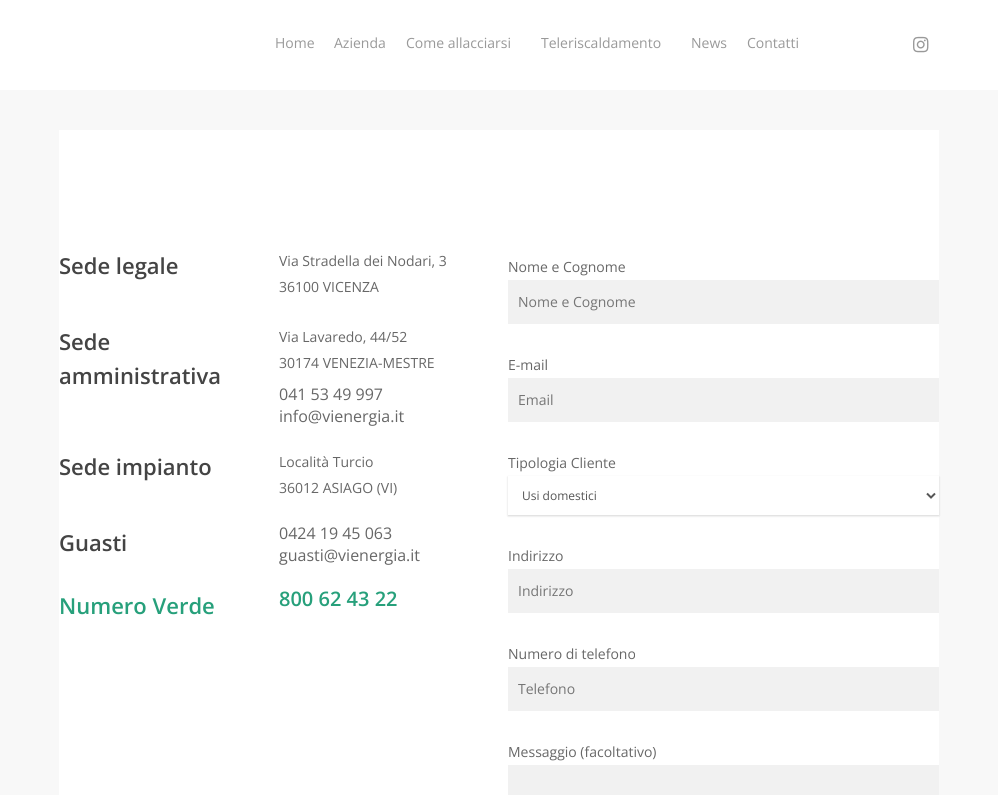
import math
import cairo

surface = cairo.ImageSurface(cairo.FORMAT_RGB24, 998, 795)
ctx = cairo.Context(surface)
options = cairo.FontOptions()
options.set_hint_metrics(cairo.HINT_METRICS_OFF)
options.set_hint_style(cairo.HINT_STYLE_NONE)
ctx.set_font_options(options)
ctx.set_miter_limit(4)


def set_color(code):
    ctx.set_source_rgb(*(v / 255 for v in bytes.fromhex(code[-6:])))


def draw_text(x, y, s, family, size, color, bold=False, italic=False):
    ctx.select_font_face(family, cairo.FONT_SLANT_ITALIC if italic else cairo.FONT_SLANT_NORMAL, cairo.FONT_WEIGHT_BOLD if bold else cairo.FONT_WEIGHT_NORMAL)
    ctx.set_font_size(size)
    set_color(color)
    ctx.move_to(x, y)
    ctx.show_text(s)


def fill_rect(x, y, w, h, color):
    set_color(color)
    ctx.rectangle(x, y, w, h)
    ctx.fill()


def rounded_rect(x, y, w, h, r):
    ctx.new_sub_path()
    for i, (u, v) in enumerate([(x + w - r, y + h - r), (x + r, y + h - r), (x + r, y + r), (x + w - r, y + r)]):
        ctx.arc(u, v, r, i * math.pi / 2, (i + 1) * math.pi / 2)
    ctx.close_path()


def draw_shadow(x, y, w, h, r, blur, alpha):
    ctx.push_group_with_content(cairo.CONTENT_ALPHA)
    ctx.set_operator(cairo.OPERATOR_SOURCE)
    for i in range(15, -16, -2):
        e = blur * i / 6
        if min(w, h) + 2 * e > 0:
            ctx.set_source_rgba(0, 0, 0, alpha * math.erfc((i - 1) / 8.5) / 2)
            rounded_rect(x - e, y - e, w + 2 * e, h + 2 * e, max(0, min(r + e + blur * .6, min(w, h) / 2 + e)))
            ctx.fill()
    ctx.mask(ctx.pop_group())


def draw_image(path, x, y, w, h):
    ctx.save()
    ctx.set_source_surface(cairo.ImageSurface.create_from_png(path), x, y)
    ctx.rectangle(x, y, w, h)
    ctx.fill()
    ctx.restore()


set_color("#ffffff")
ctx.paint()
draw_text(275, 48, "Home", "Open Sans", 14, "#999999")
draw_text(334, 48, "Azienda", "Open Sans", 14, "#999999")
draw_text(406, 48, "Come allacciarsi", "Open Sans", 14, "#999999")
draw_text(541, 48, "Teleriscaldamento", "Open Sans", 14, "#999999")
draw_text(691, 48, "News", "Open Sans", 14, "#999999")
draw_text(747, 48, "Contatti", "Open Sans", 14, "#999999")
draw_image("assets/img1.png", 913, 36, 16, 17)
fill_rect(0, 90, 998, 705, "#f8f8f8")
fill_rect(59, 130, 880, 665, "#ffffff")
draw_text(59, 274, "Sede legale", "Open Sans SemiBold", 22, "#444444")
draw_text(279, 266, "Via Stradella dei Nodari, 3", "Open Sans", 14, "#676767")
draw_text(279, 292, "36100 VICENZA", "Open Sans", 14, "#676767")
draw_text(59, 350, "Sede", "Open Sans SemiBold", 22, "#444444")
draw_text(59, 384, "amministrativa", "Open Sans SemiBold", 22, "#444444")
draw_text(279, 342, "Via Lavaredo, 44/52", "Open Sans", 14, "#676767")
draw_text(279, 368, "30174 VENEZIA-MESTRE", "Open Sans", 14, "#676767")
draw_text(279, 400, "041 53 49 997", "Open Sans", 16, "#676767")
draw_text(279, 422, "info@vienergia.it", "Open Sans", 16, "#676767")
draw_text(59, 475, "Sede impianto", "Open Sans SemiBold", 22, "#444444")
draw_text(279, 467, "Località Turcio", "Open Sans", 14, "#676767")
draw_text(279, 493, "36012 ASIAGO (VI)", "Open Sans", 14, "#676767")
draw_text(59, 551, "Guasti", "Open Sans SemiBold", 22, "#444444")
draw_text(279, 539, "0424 19 45 063", "Open Sans", 16, "#676767")
draw_text(279, 561, "guasti@vienergia.it", "Open Sans", 16, "#676767")
draw_text(59, 614, "Numero Verde", "Open Sans SemiBold", 22, "#27a07b")
draw_text(279, 606, "800 62 43 22", "Open Sans SemiBold", 20, "#27a07b")
draw_text(508, 272, "Nome e Cognome", "Open Sans", 14, "#676767")
fill_rect(508, 280, 431, 44, "#f1f1f1")
draw_text(518, 307, "Nome e Cognome", "Open Sans", 14, "#757575")
draw_text(508, 370, "E-mail", "Open Sans", 14, "#676767")
fill_rect(508, 378, 431, 44, "#f1f1f1")
draw_text(518, 405, "Email", "Open Sans", 14, "#757575")
draw_text(508, 468, "Tipologia Cliente", "Open Sans", 14, "#676767")
ctx.save()
ctx.set_fill_rule(cairo.FILL_RULE_EVEN_ODD)
ctx.new_path()
ctx.move_to(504, 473)
ctx.line_to(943, 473)
ctx.line_to(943, 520)
ctx.line_to(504, 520)
ctx.close_path()
ctx.move_to(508, 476)
ctx.line_to(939, 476)
ctx.line_to(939, 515)
ctx.line_to(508, 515)
ctx.close_path()
ctx.clip()
set_color("#000000")
draw_shadow(508, 477, 431, 39, 0, 1, 0.16)
ctx.restore()
ctx.new_path()
ctx.move_to(927, 493.5)
ctx.line_to(931, 497.5)
ctx.line_to(935, 493.5)
set_color("#555555")
ctx.stroke()
draw_text(522, 500, "Usi domestici", "Open Sans", 12, "#555555")
draw_text(508, 561, "Indirizzo", "Open Sans", 14, "#676767")
fill_rect(508, 569, 431, 44, "#f1f1f1")
draw_text(518, 596, "Indirizzo", "Open Sans", 14, "#757575")
draw_text(508, 659, "Numero di telefono", "Open Sans", 14, "#676767")
fill_rect(508, 667, 431, 44, "#f1f1f1")
draw_text(518, 694, "Telefono", "Open Sans", 14, "#757575")
draw_text(508, 757, "Messaggio (facoltativo)", "Open Sans", 14, "#676767")
fill_rect(508, 765, 431, 30, "#f1f1f1")
surface.write_to_png("output.png")
